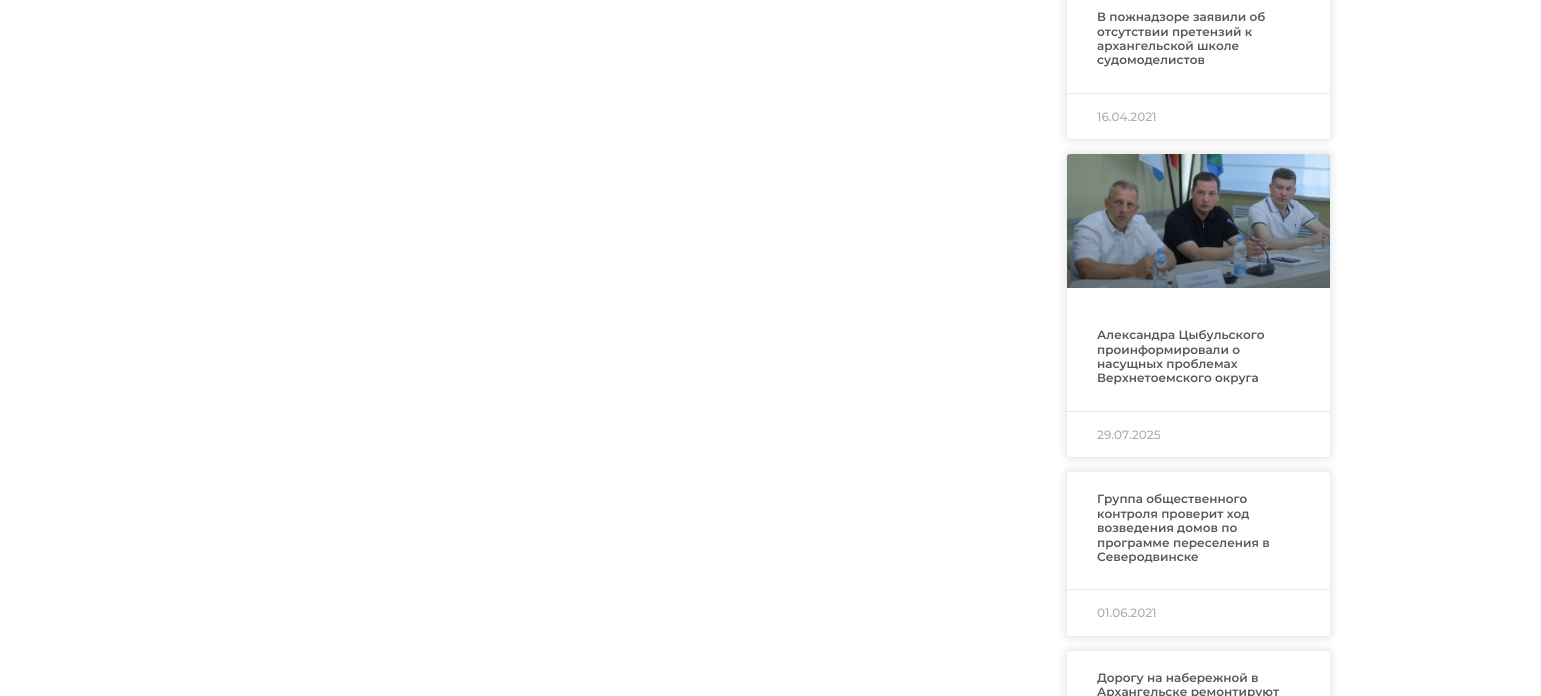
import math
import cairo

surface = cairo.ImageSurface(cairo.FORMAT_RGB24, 1541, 696)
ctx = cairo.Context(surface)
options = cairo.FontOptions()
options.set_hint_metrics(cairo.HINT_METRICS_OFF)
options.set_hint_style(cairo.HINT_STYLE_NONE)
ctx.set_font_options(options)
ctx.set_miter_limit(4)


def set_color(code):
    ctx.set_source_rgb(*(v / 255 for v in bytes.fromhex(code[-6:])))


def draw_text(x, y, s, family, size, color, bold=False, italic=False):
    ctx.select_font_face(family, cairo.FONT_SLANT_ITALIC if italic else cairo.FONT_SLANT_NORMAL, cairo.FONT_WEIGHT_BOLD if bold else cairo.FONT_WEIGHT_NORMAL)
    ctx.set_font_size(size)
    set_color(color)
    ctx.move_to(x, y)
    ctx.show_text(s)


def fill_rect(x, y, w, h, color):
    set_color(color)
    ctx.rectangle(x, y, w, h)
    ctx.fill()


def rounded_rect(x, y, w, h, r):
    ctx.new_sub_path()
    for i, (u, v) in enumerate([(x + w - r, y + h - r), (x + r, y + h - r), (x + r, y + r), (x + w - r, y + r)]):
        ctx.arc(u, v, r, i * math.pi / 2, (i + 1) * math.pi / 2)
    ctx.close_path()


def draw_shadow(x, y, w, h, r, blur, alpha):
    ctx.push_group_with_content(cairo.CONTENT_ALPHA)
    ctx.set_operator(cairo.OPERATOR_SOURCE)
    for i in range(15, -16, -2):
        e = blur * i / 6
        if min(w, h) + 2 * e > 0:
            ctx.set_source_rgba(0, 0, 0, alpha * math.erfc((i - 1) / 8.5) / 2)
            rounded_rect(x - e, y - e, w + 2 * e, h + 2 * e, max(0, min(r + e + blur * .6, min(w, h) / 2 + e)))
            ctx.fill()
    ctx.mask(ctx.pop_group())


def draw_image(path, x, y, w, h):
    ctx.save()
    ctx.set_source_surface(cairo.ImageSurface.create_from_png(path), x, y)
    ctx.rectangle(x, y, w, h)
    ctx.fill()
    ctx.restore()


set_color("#ffffff")
ctx.paint()
set_color("#000000")
draw_shadow(1067, -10, 263, 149, 3, 5, 0.15)
set_color("#ffffff")
rounded_rect(1067, -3, 263, 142, 3)
ctx.fill()
draw_text(1097, 21, "В пожнадзоре заявили об", "Montserrat SemiBold", 12, "#54595f")
draw_text(1097, 36, "отсутствии претензий к", "Montserrat SemiBold", 12, "#54595f")
draw_text(1097, 50, "архангельской школе", "Montserrat SemiBold", 12, "#54595f")
draw_text(1097, 64, "судомоделистов", "Montserrat SemiBold", 12, "#54595f")
fill_rect(1067, 93, 263, 1, "#eaeaea")
draw_text(1097, 121, "16.04.2021", "Montserrat Medium", 12, "#adadad")
set_color("#000000")
draw_shadow(1067, 154, 263, 303, 3, 5, 0.15)
set_color("#ffffff")
rounded_rect(1067, 154, 263, 303, 3)
ctx.fill()
draw_image("assets/img1.png", 1067, 154, 263, 134)
gradient = cairo.LinearGradient(1199, 288, 1199, 154)
gradient.add_color_stop_rgba(0, 0, 0, 0, 0.35)
gradient.add_color_stop_rgba(0.75, 0, 0, 0, 0)
ctx.set_source(gradient)
ctx.rectangle(1067, 194, 263, 94)
ctx.fill()
draw_text(1097, 339, "Александра Цыбульского", "Montserrat SemiBold", 12, "#54595f")
draw_text(1097, 354, "проинформировали о", "Montserrat SemiBold", 12, "#54595f")
draw_text(1097, 368, "насущных проблемах", "Montserrat SemiBold", 12, "#54595f")
draw_text(1097, 382, "Верхнетоемского округа", "Montserrat SemiBold", 12, "#54595f")
fill_rect(1067, 411, 263, 1, "#eaeaea")
draw_text(1097, 439, "29.07.2025", "Montserrat Medium", 12, "#adadad")
set_color("#000000")
draw_shadow(1067, 472, 263, 164, 3, 5, 0.15)
set_color("#ffffff")
rounded_rect(1067, 472, 263, 164, 3)
ctx.fill()
draw_text(1097, 503, "Группа общественного", "Montserrat SemiBold", 12, "#54595f")
draw_text(1097, 518, "контроля проверит ход", "Montserrat SemiBold", 12, "#54595f")
draw_text(1097, 532, "возведения домов по", "Montserrat SemiBold", 12, "#54595f")
draw_text(1097, 547, "программе переселения в", "Montserrat SemiBold", 12, "#54595f")
draw_text(1097, 561, "Северодвинске", "Montserrat SemiBold", 12, "#54595f")
fill_rect(1067, 589, 263, 1, "#eaeaea")
draw_text(1097, 617, "01.06.2021", "Montserrat Medium", 12, "#adadad")
set_color("#000000")
draw_shadow(1067, 651, 263, 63, 3, 5, 0.15)
set_color("#ffffff")
rounded_rect(1067, 651, 263, 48, 3)
ctx.fill()
draw_text(1097, 682, "Дорогу на набережной в", "Montserrat SemiBold", 12, "#54595f")
draw_text(1097, 696, "Архангельске ремонтируют", "Montserrat SemiBold", 12, "#54595f")
surface.write_to_png("output.png")
